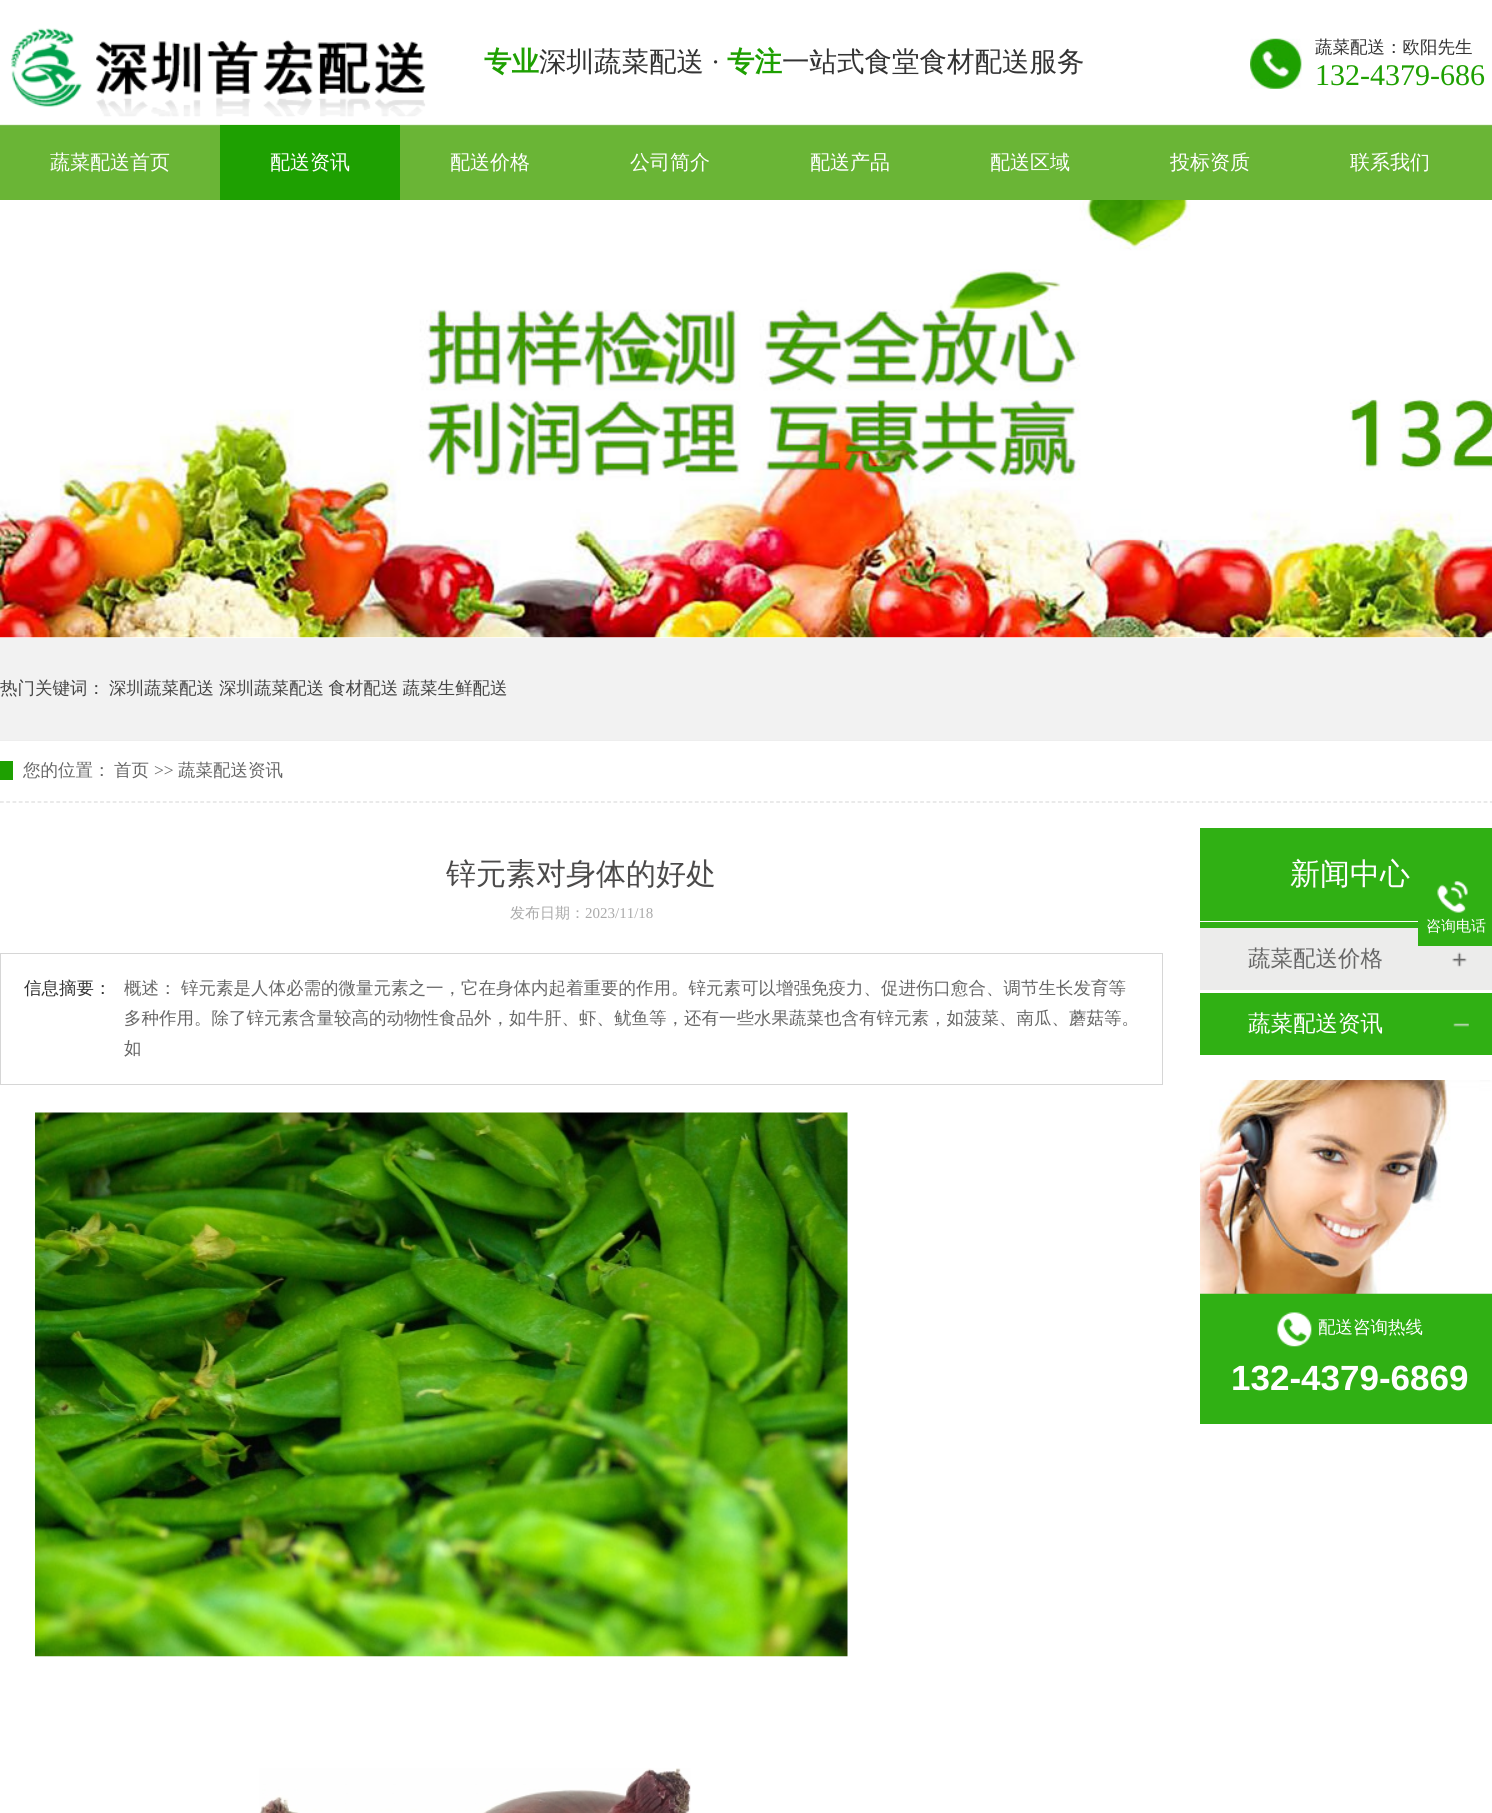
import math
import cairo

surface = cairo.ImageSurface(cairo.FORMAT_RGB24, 1492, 1813)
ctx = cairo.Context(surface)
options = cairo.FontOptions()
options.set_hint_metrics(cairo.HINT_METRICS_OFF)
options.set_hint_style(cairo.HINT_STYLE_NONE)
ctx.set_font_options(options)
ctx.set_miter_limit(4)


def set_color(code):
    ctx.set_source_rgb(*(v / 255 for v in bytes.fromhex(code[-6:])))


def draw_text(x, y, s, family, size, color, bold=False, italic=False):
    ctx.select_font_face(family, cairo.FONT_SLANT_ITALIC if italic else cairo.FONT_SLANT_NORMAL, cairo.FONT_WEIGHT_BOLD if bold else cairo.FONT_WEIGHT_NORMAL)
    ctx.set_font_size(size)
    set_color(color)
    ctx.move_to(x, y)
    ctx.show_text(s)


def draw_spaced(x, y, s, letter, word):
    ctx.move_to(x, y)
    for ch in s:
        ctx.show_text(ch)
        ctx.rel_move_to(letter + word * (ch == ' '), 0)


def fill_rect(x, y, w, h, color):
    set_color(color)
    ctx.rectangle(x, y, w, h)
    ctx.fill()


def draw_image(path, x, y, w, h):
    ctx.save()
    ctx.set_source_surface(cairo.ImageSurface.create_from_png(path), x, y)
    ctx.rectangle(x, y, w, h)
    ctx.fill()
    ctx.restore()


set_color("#ffffff")
ctx.paint()
draw_image("assets/img1.png", 0, 124, 1492, 76)
draw_image("assets/img2.png", 11, 28, 415, 89)
draw_text(484, 71, "专业", "WenQuanYi Zen Hei", 27.5, "#1ea001", bold=True)
draw_text(539, 71, "深圳蔬菜配送", "WenQuanYi Zen Hei Medium", 27.5, "#333333")
draw_text(711, 71, "·", "Liberation Serif", 27.5, "#333333")
draw_text(727, 71, "专注", "WenQuanYi Zen Hei", 27.5, "#1ea001", bold=True)
draw_text(782, 71, "一站式食堂食材配送服务", "WenQuanYi Zen Hei Medium", 27.5, "#333333")
draw_image("assets/img3.png", 1250, 38, 52, 51)
draw_text(1315, 53, "蔬菜配送：欧阳先生", "WenQuanYi Zen Hei Medium", 17.5, "#333333")
draw_text(1315, 85, "132-4379-686", "Liberation Serif", 30, "#1ea001")
draw_text(50, 169, "蔬菜配送首页", "WenQuanYi Zen Hei Medium", 20, "#ffffff")
fill_rect(220, 125, 180, 75, "#1ea001")
draw_text(270, 169, "配送资讯", "WenQuanYi Zen Hei Medium", 20, "#ffffff")
draw_text(450, 169, "配送价格", "WenQuanYi Zen Hei Medium", 20, "#ffffff")
draw_text(630, 169, "公司简介", "WenQuanYi Zen Hei Medium", 20, "#ffffff")
draw_text(810, 169, "配送产品", "WenQuanYi Zen Hei Medium", 20, "#ffffff")
draw_text(990, 169, "配送区域", "WenQuanYi Zen Hei Medium", 20, "#ffffff")
draw_text(1170, 169, "投标资质", "WenQuanYi Zen Hei Medium", 20, "#ffffff")
draw_text(1350, 169, "联系我们", "WenQuanYi Zen Hei Medium", 20, "#ffffff")
draw_image("assets/img4.png", 0, 200, 1492, 438)
fill_rect(0, 638, 1492, 102, "#f2f2f2")
fill_rect(0, 740, 1492, 1, "#eeeeee")
draw_text(0, 694, "热门关键词：", "WenQuanYi Zen Hei Medium", 17.5, "#444444")
draw_text(109, 694, "深圳蔬菜配送", "WenQuanYi Zen Hei Medium", 17.5, "#444444")
draw_spaced(219, 694, "深圳蔬菜配送 食材配送 蔬菜生鲜配送", 0, -1)
ctx.new_path()
ctx.move_to(0, 802)
ctx.line_to(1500, 802)
set_color("#dcdcdc")
ctx.set_line_width(1.2)
ctx.set_dash([3.75, 2.51])
ctx.stroke()
draw_text(23, 776, "您的位置：", "WenQuanYi Zen Hei Medium", 17.5, "#666666")
fill_rect(0, 761, 13, 19, "#1ea001")
draw_text(114, 776, "首页", "WenQuanYi Zen Hei Medium", 17.5, "#666666")
draw_text(154, 776, ">>", "Liberation Serif", 17.5, "#666666")
draw_text(178, 776, "蔬菜配送资讯", "WenQuanYi Zen Hei Medium", 17.5, "#666666")
draw_text(446, 884, "锌元素对身体的好处", "WenQuanYi Zen Hei Medium", 30, "#4b4a4a")
draw_text(510, 918, "发布日期：", "WenQuanYi Zen Hei Medium", 15, "#aaaaaa")
draw_text(585, 918, "2023/11/18", "Liberation Serif", 15, "#aaaaaa")
ctx.rectangle(0.5, 953.5, 1162, 131)
set_color("#d6d6d6")
ctx.set_line_width(1)
ctx.set_dash([])
ctx.stroke()
draw_text(24, 994, "信息摘要：", "WenQuanYi Zen Hei Medium", 17.5, "#333333")
draw_text(124, 994, "概述：", "WenQuanYi Zen Hei Medium", 17.5, "#666666")
draw_text(181, 994, "锌元素是人体必需的微量元素之一，它在身体内起着重要的作用。锌元素可以增强免疫力、促进伤口愈合、调节生长发育等", "WenQuanYi Zen Hei Medium", 17.5, "#666666")
draw_text(124, 1024, "多种作用。除了锌元素含量较高的动物性食品外，如牛肝、虾、鱿鱼等，还有一些水果蔬菜也含有锌元素，如菠菜、南瓜、蘑菇等。", "WenQuanYi Zen Hei Medium", 17.5, "#666666")
draw_text(124, 1054, "如", "WenQuanYi Zen Hei Medium", 17.5, "#666666")
draw_image("assets/img5.png", 35, 1112, 813, 545)
draw_image("assets/img6.png", 259, 1768, 432, 45)
fill_rect(1200, 828, 292, 100, "#30b014")
fill_rect(1200, 921, 218, 1, "#ffffff")
draw_text(1290, 884, "新闻中心", "WenQuanYi Zen Hei Medium", 30, "#ffffff")
fill_rect(1200, 928, 292, 62, "#ececeb")
draw_image("assets/img7.png", 1452, 952, 15, 15)
draw_text(1248, 966, "蔬菜配送价格", "WenQuanYi Zen Hei Medium", 22.5, "#666666")
fill_rect(1200, 993, 292, 62, "#30b014")
draw_image("assets/img8.png", 1453, 1023, 16, 4)
draw_text(1248, 1031, "蔬菜配送资讯", "WenQuanYi Zen Hei Medium", 22.5, "#ffffff")
fill_rect(1200, 1293, 292, 131, "#30b014")
draw_image("assets/img9.png", 1200, 1080, 292, 214)
draw_image("assets/img10.png", 1277, 1312, 35, 35)
draw_text(1318, 1333, "配送咨询热线", "WenQuanYi Zen Hei Medium", 17.5, "#ffffff")
draw_text(1231, 1390, "132-4379-6869", "Liberation Sans", 35, "#ffffff", bold=True)
fill_rect(1418, 928, 74, 18, "#30b014")
draw_image("assets/img11.png", 1437, 881, 31, 32)
draw_text(1426, 931, "咨询电话", "WenQuanYi Zen Hei Medium", 15, "#ffffff")
surface.write_to_png("output.png")
